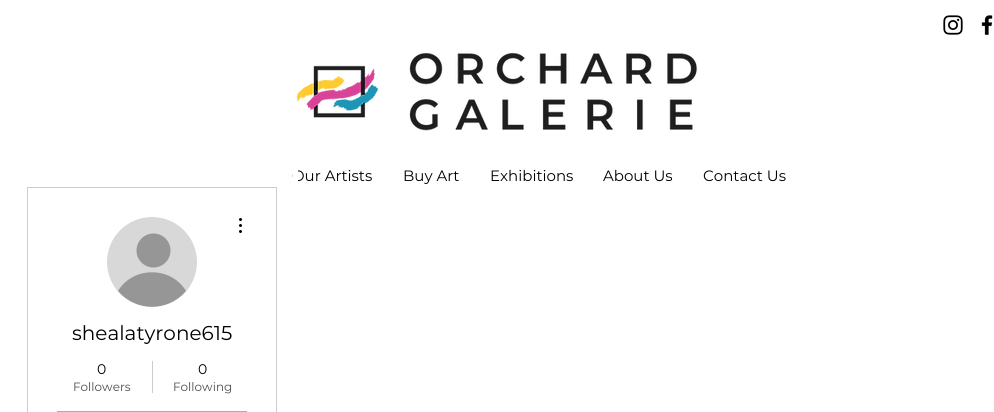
import math
import cairo

surface = cairo.ImageSurface(cairo.FORMAT_RGB24, 994, 412)
ctx = cairo.Context(surface)
options = cairo.FontOptions()
options.set_hint_metrics(cairo.HINT_METRICS_OFF)
options.set_hint_style(cairo.HINT_STYLE_NONE)
ctx.set_font_options(options)
ctx.set_miter_limit(4)


def set_color(code):
    ctx.set_source_rgb(*(v / 255 for v in bytes.fromhex(code[-6:])))


def draw_text(x, y, s, family, size, color, bold=False, italic=False):
    ctx.select_font_face(family, cairo.FONT_SLANT_ITALIC if italic else cairo.FONT_SLANT_NORMAL, cairo.FONT_WEIGHT_BOLD if bold else cairo.FONT_WEIGHT_NORMAL)
    ctx.set_font_size(size)
    set_color(color)
    ctx.move_to(x, y)
    ctx.show_text(s)


def fill_rect(x, y, w, h, color):
    set_color(color)
    ctx.rectangle(x, y, w, h)
    ctx.fill()


def draw_image(path, x, y, w, h):
    ctx.save()
    ctx.set_source_surface(cairo.ImageSurface.create_from_png(path), x, y)
    ctx.rectangle(x, y, w, h)
    ctx.fill()
    ctx.restore()


set_color("#ffffff")
ctx.paint()
draw_image("assets/img1.png", 943, 15, 20, 20)
draw_image("assets/img2.png", 981, 15, 12, 20)
draw_image("assets/img3.png", 295, 51, 402, 80)
draw_text(292, 181, "Our Artists", "Montserrat", 15, "#000000")
draw_text(403, 181, "Buy Art", "Montserrat", 15, "#000000")
draw_text(490, 181, "Exhibitions", "Montserrat", 15, "#000000")
draw_text(603, 181, "About Us", "Montserrat", 15, "#000000")
draw_text(703, 181, "Contact Us", "Montserrat", 15, "#000000")
fill_rect(293, 170, 5, 11, "#ffffff")
ctx.rectangle(27.5, 187.5, 249, 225)
set_color("#cccccc")
ctx.set_line_width(1)
ctx.stroke()
set_color("#d8d8d8")
ctx.arc(152, 262, 45, 0, 2 * math.pi)
ctx.fill()
set_color("#969696")
ctx.arc(153.5, 250.5, 17, 0, 2 * math.pi)
ctx.fill()
ctx.new_path()
ctx.move_to(186, 291)
ctx.curve_to(168, 312, 136, 312, 118, 291)
ctx.curve_to(133, 266, 171, 266, 186, 291)
ctx.close_path()
ctx.fill()
draw_image("assets/img4.png", 239, 218, 3, 15)
draw_text(72, 340, "shealatyrone615", "Montserrat", 20, "#000000")
draw_text(97, 374, "0", "Montserrat", 14, "#000000")
draw_text(73, 391, "Followers", "Montserrat", 12, "#4d4d4d")
fill_rect(152, 361, 1, 32, "#cccccc")
draw_text(198, 374, "0", "Montserrat", 14, "#000000")
draw_text(173, 391, "Following", "Montserrat", 12, "#4d4d4d")
fill_rect(57, 411, 190, 1, "#4fd4c7")
surface.write_to_png("output.png")
